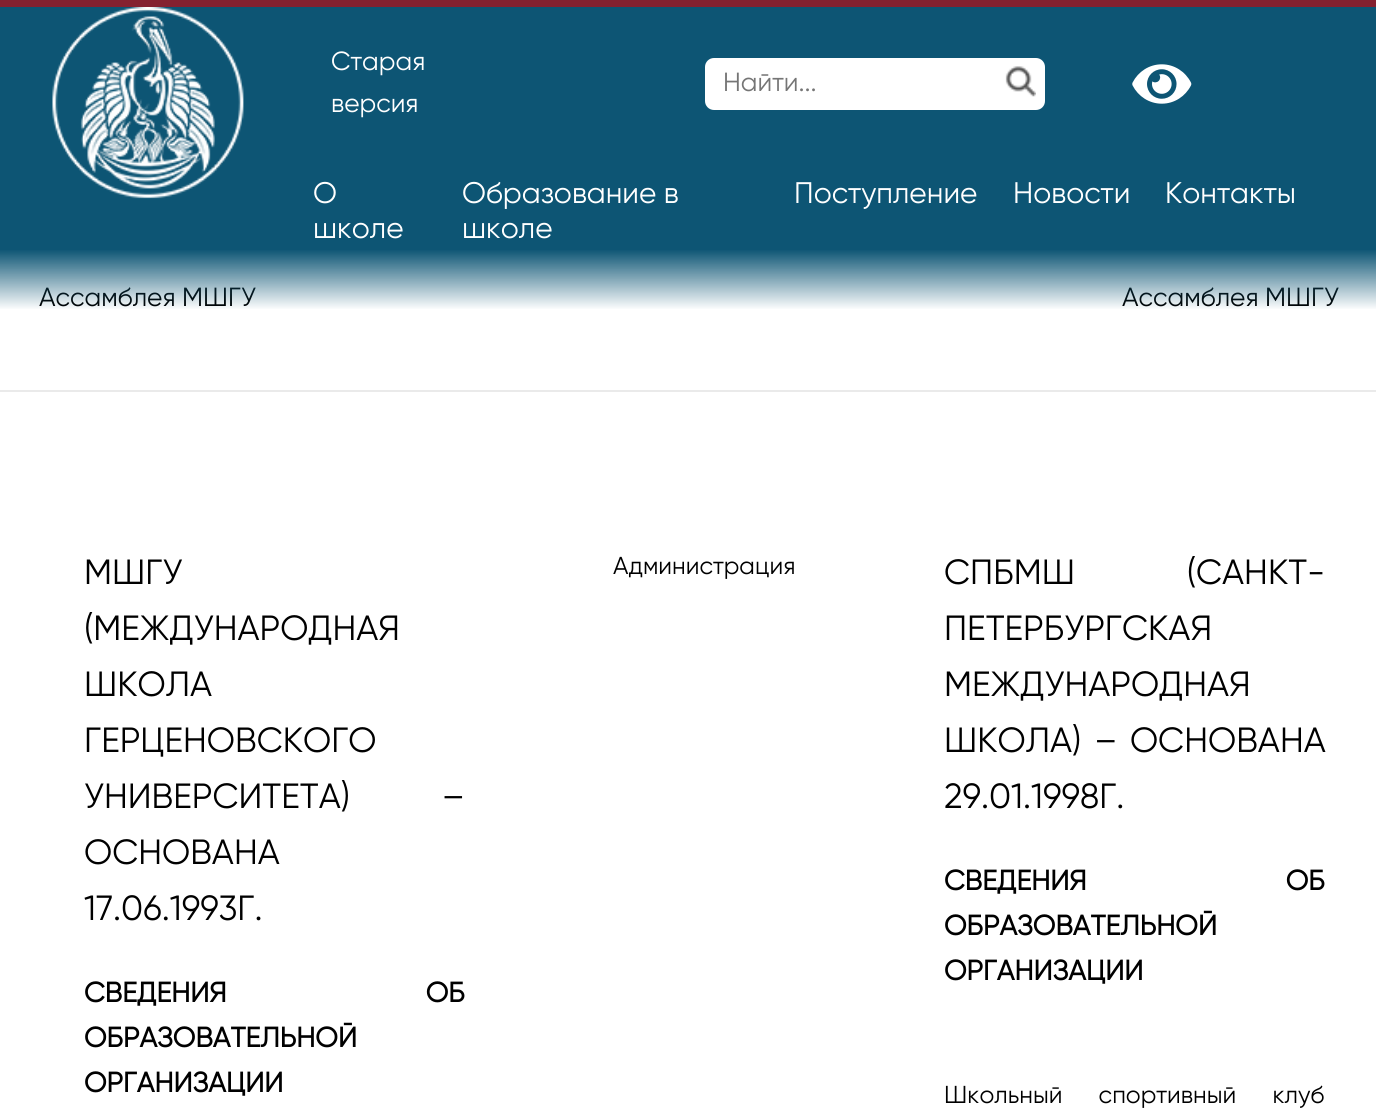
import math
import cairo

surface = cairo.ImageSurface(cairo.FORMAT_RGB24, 1376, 1109)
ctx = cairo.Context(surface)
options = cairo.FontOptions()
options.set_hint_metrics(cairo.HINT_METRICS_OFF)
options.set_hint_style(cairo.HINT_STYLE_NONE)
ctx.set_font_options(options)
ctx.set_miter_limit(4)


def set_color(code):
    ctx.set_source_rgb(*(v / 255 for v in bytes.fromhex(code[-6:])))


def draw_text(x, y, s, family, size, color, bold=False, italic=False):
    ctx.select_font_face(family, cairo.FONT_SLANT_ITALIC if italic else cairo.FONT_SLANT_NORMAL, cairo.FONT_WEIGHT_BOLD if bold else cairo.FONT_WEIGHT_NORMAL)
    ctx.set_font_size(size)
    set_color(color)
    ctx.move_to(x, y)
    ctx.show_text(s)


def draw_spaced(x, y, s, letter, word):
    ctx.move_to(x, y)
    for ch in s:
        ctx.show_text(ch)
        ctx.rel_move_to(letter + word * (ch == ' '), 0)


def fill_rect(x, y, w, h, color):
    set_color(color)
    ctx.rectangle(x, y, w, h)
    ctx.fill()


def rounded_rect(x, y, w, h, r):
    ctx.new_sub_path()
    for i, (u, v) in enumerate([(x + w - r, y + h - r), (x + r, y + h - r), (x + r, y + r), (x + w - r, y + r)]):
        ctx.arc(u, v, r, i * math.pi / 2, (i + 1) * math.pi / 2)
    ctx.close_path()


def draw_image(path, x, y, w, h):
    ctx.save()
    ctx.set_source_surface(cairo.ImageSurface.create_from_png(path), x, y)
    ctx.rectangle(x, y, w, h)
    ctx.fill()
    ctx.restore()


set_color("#ffffff")
ctx.paint()
draw_text(39, 306, "Ассамблея МШГУ", "Gilroy", 26.25, "#000000")
draw_text(1122, 306, "Ассамблея МШГУ", "Gilroy", 26.25, "#000000")
gradient = cairo.LinearGradient(689, 7, 689, 310)
gradient.add_color_stop_rgba(0, 0.051, 0.333, 0.455, 1)
gradient.add_color_stop_rgba(0.8, 0.051, 0.333, 0.455, 1)
gradient.add_color_stop_rgba(1, 0.051, 0.333, 0.455, 0)
ctx.set_source(gradient)
ctx.rectangle(0, 7, 1376, 302)
ctx.fill()
fill_rect(0, 0, 1376, 7, "#842130")
draw_image("assets/img1.png", 52, 7, 192, 192)
draw_text(331, 70, "Старая", "Gilroy", 26.25, "#ffffff")
draw_text(331, 112, "версия", "Gilroy", 26.25, "#ffffff")
rounded_rect(705, 58, 340, 52, 9)
ctx.fill()
draw_text(723, 91, "Найти...", "Gilroy", 26.25, "#757575")
draw_image("assets/img2.png", 1005, 66, 31, 31)
draw_image("assets/img3.png", 1132, 64, 60, 40)
draw_text(313, 203, "О", "Gilroy", 29.75, "#ffffff")
draw_text(313, 238, "школе", "Gilroy", 29.75, "#ffffff")
draw_text(462, 203, "Образование в", "Gilroy", 29.75, "#ffffff")
draw_text(462, 238, "школе", "Gilroy", 29.75, "#ffffff")
draw_text(794, 203, "Поступление", "Gilroy", 29.75, "#ffffff")
draw_text(1013, 203, "Новости", "Gilroy", 29.75, "#ffffff")
draw_text(1165, 203, "Контакты", "Gilroy", 29.75, "#ffffff")
fill_rect(0, 390, 1376, 2, "#eaeaea")
draw_text(84, 584, "МШГУ", "Gilroy", 35, "#000000")
draw_text(84, 640, "(МЕЖДУНАРОДНАЯ", "Gilroy", 35, "#000000")
draw_text(84, 696, "ШКОЛА", "Gilroy", 35, "#000000")
draw_text(84, 752, "ГЕРЦЕНОВСКОГО", "Gilroy", 35, "#000000")
draw_spaced(84, 808, "УНИВЕРСИТЕТА) –", 0, 83)
draw_text(84, 864, "ОСНОВАНА", "Gilroy", 35, "#000000")
draw_text(84, 920, "17.06.1993Г.", "Gilroy", 35, "#000000")
ctx.select_font_face("Gilroy", cairo.FONT_SLANT_NORMAL, cairo.FONT_WEIGHT_BOLD)
ctx.set_font_size(28)
draw_spaced(84, 1002, "СВЕДЕНИЯ ОБ", 0, 192)
draw_text(84, 1047, "ОБРАЗОВАТЕЛЬНОЙ", "Gilroy", 28, "#000000", bold=True)
draw_text(84, 1092, "ОРГАНИЗАЦИИ", "Gilroy", 28, "#000000", bold=True)
draw_text(613, 574, "Администрация", "Gilroy", 24.5, "#000000")
ctx.set_font_size(35)
draw_spaced(944, 584, "СПБМШ (САНКТ-", 0, 103)
draw_text(944, 640, "ПЕТЕРБУРГСКАЯ", "Gilroy", 35, "#000000")
draw_text(944, 696, "МЕЖДУНАРОДНАЯ", "Gilroy", 35, "#000000")
draw_spaced(944, 752, "ШКОЛА) – ОСНОВАНА", 0, 4)
draw_text(944, 808, "29.01.1998Г.", "Gilroy", 35, "#000000")
ctx.select_font_face("Gilroy", cairo.FONT_SLANT_NORMAL, cairo.FONT_WEIGHT_BOLD)
ctx.set_font_size(28)
draw_spaced(944, 890, "СВЕДЕНИЯ ОБ", 0, 192)
draw_text(944, 935, "ОБРАЗОВАТЕЛЬНОЙ", "Gilroy", 28, "#000000", bold=True)
draw_text(944, 980, "ОРГАНИЗАЦИИ", "Gilroy", 28, "#000000", bold=True)
ctx.select_font_face("Gilroy")
ctx.set_font_size(24.5)
draw_spaced(944, 1103, "Школьный спортивный клуб", 0, 30)
surface.write_to_png("output.png")
